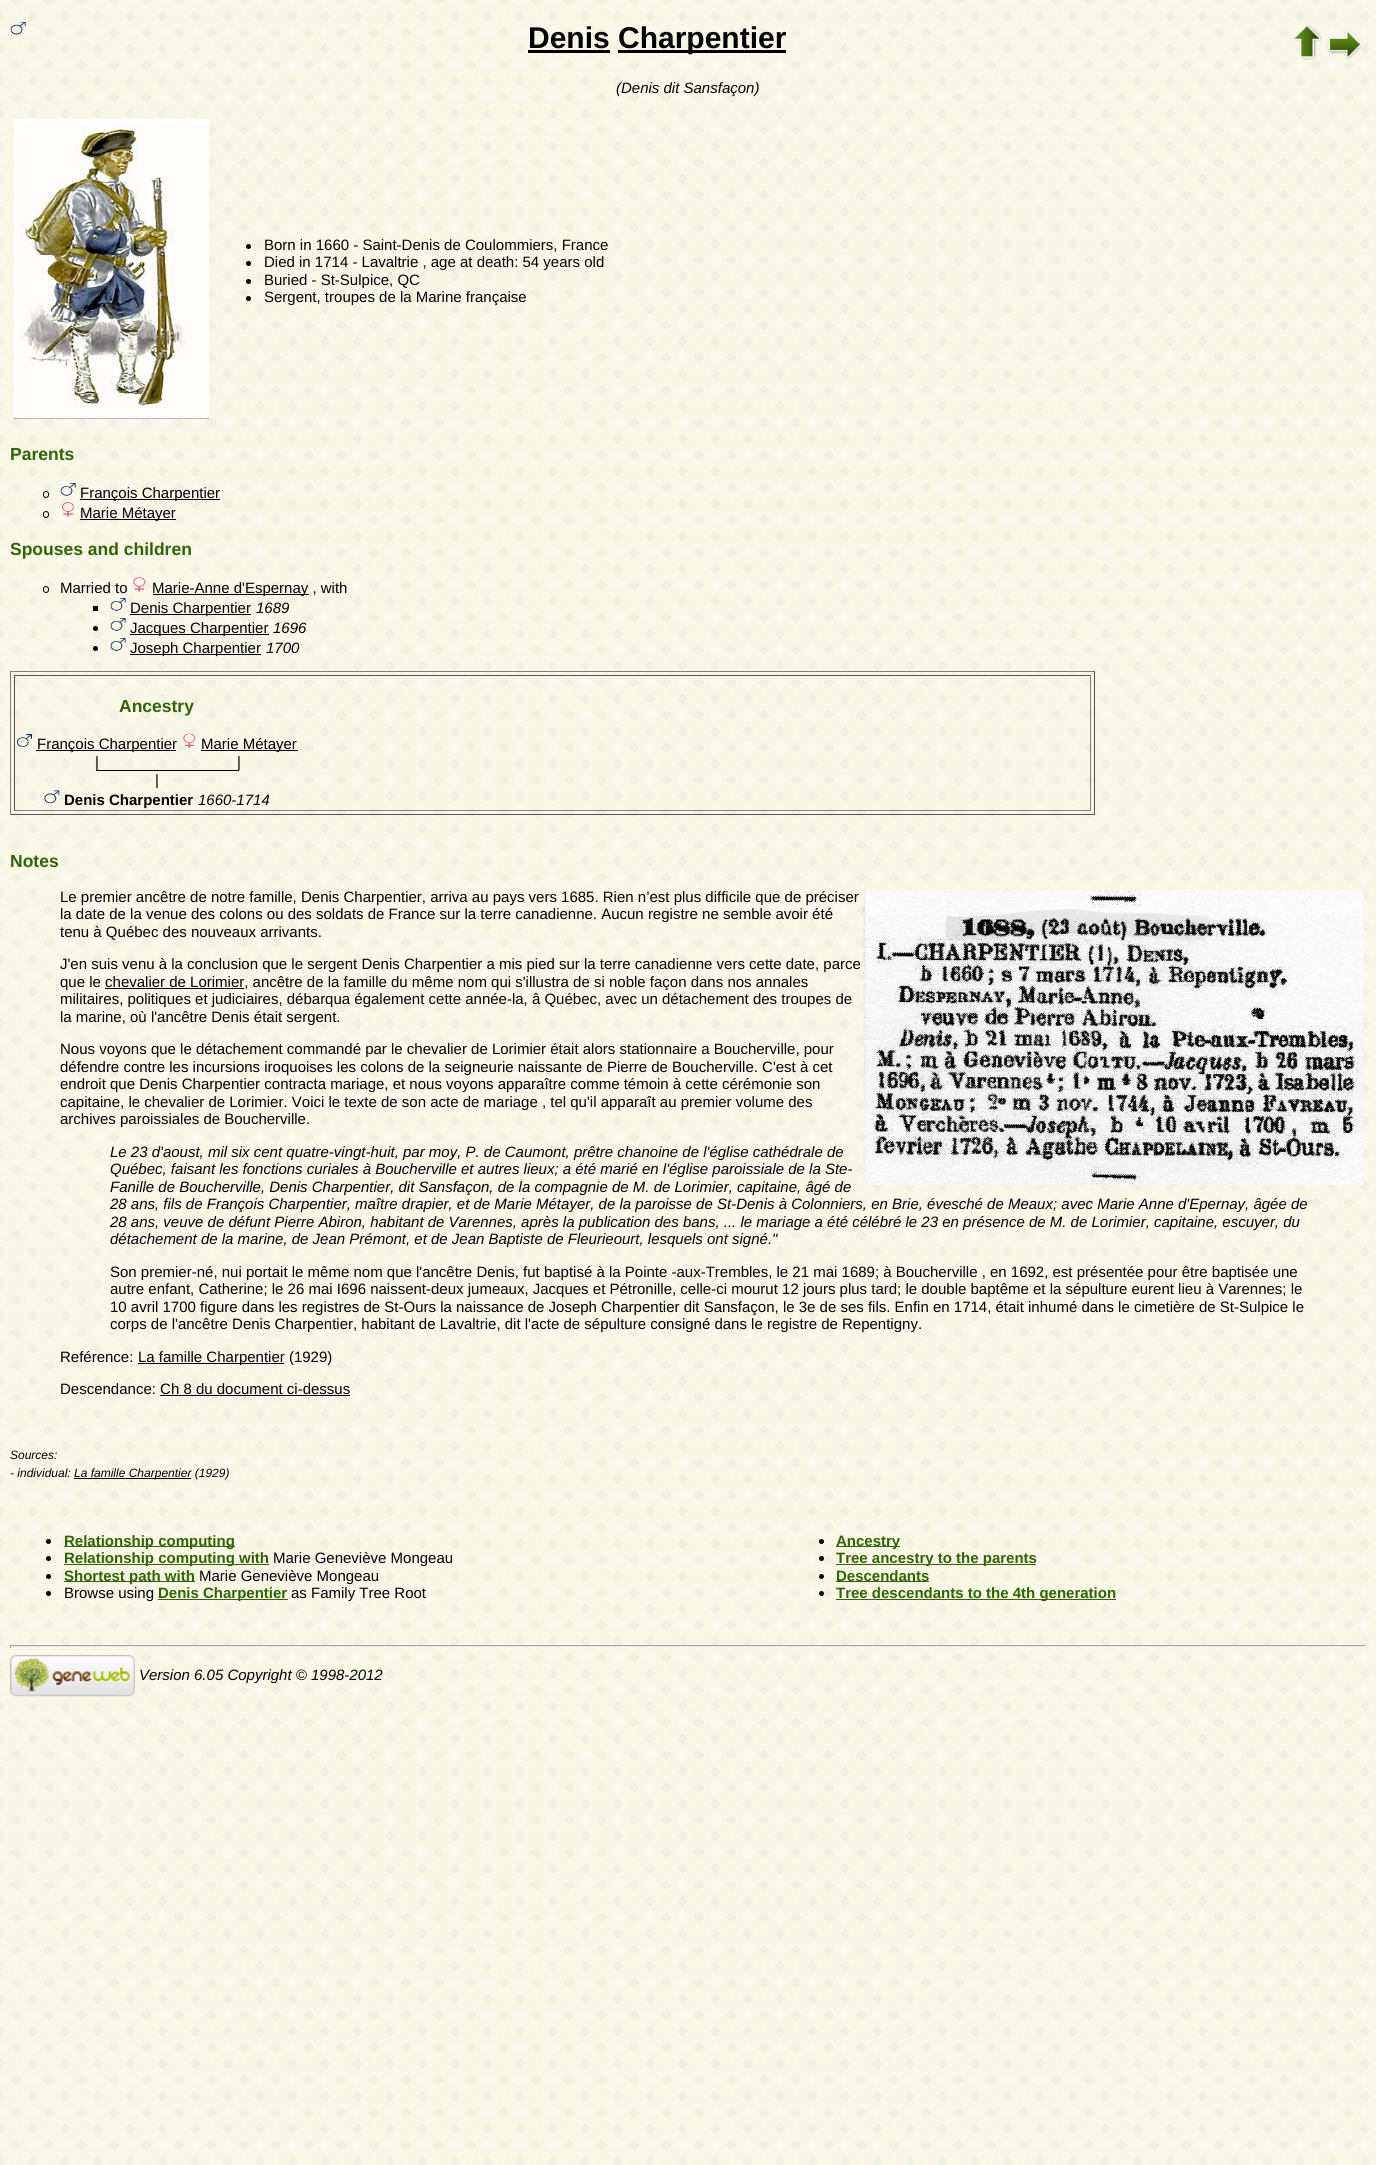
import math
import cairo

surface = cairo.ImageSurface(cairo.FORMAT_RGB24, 1376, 2165)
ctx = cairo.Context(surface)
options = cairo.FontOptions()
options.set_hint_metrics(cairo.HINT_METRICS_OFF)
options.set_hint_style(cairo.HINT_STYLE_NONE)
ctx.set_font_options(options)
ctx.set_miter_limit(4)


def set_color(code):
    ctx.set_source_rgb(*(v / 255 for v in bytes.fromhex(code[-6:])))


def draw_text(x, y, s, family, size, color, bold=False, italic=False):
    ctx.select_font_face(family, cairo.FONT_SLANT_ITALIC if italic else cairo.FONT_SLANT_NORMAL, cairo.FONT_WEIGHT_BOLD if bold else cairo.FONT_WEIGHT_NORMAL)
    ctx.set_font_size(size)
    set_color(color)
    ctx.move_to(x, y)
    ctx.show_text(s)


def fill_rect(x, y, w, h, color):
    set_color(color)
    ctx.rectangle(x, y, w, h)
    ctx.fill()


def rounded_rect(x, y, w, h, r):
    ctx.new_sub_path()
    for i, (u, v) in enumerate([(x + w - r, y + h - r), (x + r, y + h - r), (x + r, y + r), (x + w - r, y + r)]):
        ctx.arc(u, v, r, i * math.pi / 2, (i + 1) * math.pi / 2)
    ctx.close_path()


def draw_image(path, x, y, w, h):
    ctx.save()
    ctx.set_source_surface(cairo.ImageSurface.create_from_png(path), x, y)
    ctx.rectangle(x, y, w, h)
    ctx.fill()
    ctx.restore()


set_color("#ffffff")
ctx.paint()
draw_image("assets/img1.png", 0, 0, 1376, 2165)
draw_image("assets/img2.png", 10, 21, 16, 14)
draw_text(528, 48, "Denis", "Liberation Sans", 30, "#000000", bold=True)
fill_rect(528, 50, 82, 3, "#000000")
fill_rect(618, 50, 168, 3, "#000000")
draw_text(618, 48, "Charpentier", "Liberation Sans", 30, "#000000", bold=True)
draw_image("assets/img3.png", 1294, 25, 28, 35)
draw_image("assets/img4.png", 1327, 31, 35, 29)
draw_text(616, 93, "(Denis dit Sansfaçon)", "Liberation Sans", 15, "#000000", italic=True)
draw_image("assets/img5.png", 13, 118, 196, 301)
ctx.arc(248.5, 246.5, 2.5, 0, 2 * math.pi)
ctx.fill()
draw_text(264, 250, "Born in 1660 - Saint-Denis de Coulommiers, France", "Liberation Sans", 15, "#000000")
ctx.new_path()
ctx.arc(248.5, 263.5, 2.5, 0, 2 * math.pi)
ctx.fill()
draw_text(264, 267, "Died in 1714 - Lavaltrie , age at death: 54 years old", "Liberation Sans", 15, "#000000")
ctx.new_path()
ctx.arc(248.5, 281.5, 2.5, 0, 2 * math.pi)
ctx.fill()
draw_text(264, 285, "Buried - St-Sulpice, QC", "Liberation Sans", 15, "#000000")
ctx.new_path()
ctx.arc(248.5, 298.5, 2.5, 0, 2 * math.pi)
ctx.fill()
draw_text(264, 302, "Sergent, troupes de la Marine française", "Liberation Sans", 15, "#000000")
draw_text(10, 460, "Parents", "Liberation Sans", 17.5, "#2f6400", bold=True)
rounded_rect(43.5, 491.5, 5, 6, 2.5)
set_color("#000000")
ctx.set_line_width(1)
ctx.stroke()
draw_image("assets/img6.png", 60, 483, 16, 13)
fill_rect(80, 499, 140, 1, "#000000")
draw_text(80, 498, "François Charpentier", "Liberation Sans", 15, "#000000")
rounded_rect(43.5, 511.5, 5, 6, 2.5)
ctx.stroke()
draw_image("assets/img7.png", 62, 502, 12, 15)
fill_rect(80, 519, 96, 1, "#000000")
draw_text(80, 518, "Marie Métayer", "Liberation Sans", 15, "#000000")
draw_text(10, 555, "Spouses and children", "Liberation Sans", 17.5, "#2f6400", bold=True)
rounded_rect(43.5, 586.5, 5, 6, 2.5)
set_color("#000000")
ctx.stroke()
draw_text(60, 593, "Married to", "Liberation Sans", 15, "#000000")
draw_image("assets/img8.png", 133, 577, 13, 15)
fill_rect(153, 594, 156, 1, "#000000")
draw_text(152, 593, "Marie-Anne d'Espernay , with", "Liberation Sans", 15, "#000000")
fill_rect(93, 606, 5, 5, "#000000")
draw_image("assets/img9.png", 110, 598, 16, 13)
fill_rect(130, 614, 121, 1, "#000000")
draw_text(130, 613, "Denis Charpentier", "Liberation Sans", 15, "#000000")
draw_text(256, 613, "1689", "Liberation Sans", 15, "#000000", italic=True)
ctx.new_path()
ctx.arc(95.5, 628.5, 2.5, 0, 2 * math.pi)
ctx.fill()
draw_image("assets/img10.png", 110, 618, 16, 13)
fill_rect(130, 634, 139, 1, "#000000")
draw_text(130, 633, "Jacques Charpentier", "Liberation Sans", 15, "#000000")
draw_text(273, 633, "1696", "Liberation Sans", 15, "#000000", italic=True)
ctx.new_path()
ctx.arc(95.5, 648.5, 2.5, 0, 2 * math.pi)
ctx.fill()
draw_image("assets/img11.png", 110, 638, 16, 13)
fill_rect(130, 654, 131, 1, "#000000")
draw_text(130, 653, "Joseph Charpentier", "Liberation Sans", 15, "#000000")
draw_text(266, 653, "1700", "Liberation Sans", 15, "#000000", italic=True)
fill_rect(10, 671, 1085, 1, "#808080")
fill_rect(1094, 671, 1, 144, "#555555")
fill_rect(10, 814, 1085, 1, "#555555")
fill_rect(10, 671, 1, 144, "#808080")
fill_rect(14, 675, 1077, 1, "#555555")
fill_rect(1090, 675, 1, 136, "#808080")
fill_rect(14, 810, 1077, 1, "#808080")
fill_rect(14, 675, 1, 136, "#555555")
draw_text(119, 712, "Ancestry", "Liberation Sans", 17.5, "#2f6400", bold=True)
draw_image("assets/img12.png", 17, 734, 15, 13)
fill_rect(36, 750, 140, 1, "#000000")
draw_text(37, 749, "François Charpentier", "Liberation Sans", 15, "#000000")
draw_image("assets/img13.png", 183, 733, 13, 15)
fill_rect(201, 750, 97, 1, "#000000")
draw_text(201, 749, "Marie Métayer", "Liberation Sans", 15, "#000000")
draw_text(95, 767, "|", "Liberation Sans", 15, "#000000")
draw_text(237, 767, "|", "Liberation Sans", 15, "#000000")
fill_rect(96, 770, 143, 1, "#000000")
draw_text(155, 785, "|", "Liberation Sans", 15, "#000000")
draw_image("assets/img14.png", 44, 790, 16, 14)
draw_text(64, 805, "Denis Charpentier", "Liberation Sans", 15, "#000000", bold=True)
draw_text(198, 805, "1660-1714", "Liberation Sans", 15, "#000000", italic=True)
draw_text(10, 867, "Notes", "Liberation Sans", 17.5, "#2f6400", bold=True)
draw_text(60, 902, "Le premier ancêtre de notre famille, Denis Charpentier, arriva au pays vers 1685. Rien n’est plus difficile que de préciser", "Liberation Sans", 15, "#000000")
draw_text(60, 919, "la date de la venue des colons ou des soldats de France sur la terre canadienne. Aucun registre ne semble avoir été", "Liberation Sans", 15, "#000000")
draw_text(60, 937, "tenu à Québec des nouveaux arrivants.", "Liberation Sans", 15, "#000000")
draw_image("assets/img15.png", 863, 890, 501, 295)
draw_text(60, 969, "J'en suis venu à la conclusion que le sergent Denis Charpentier a mis pied sur la terre canadienne vers cette date, parce", "Liberation Sans", 15, "#000000")
draw_text(60, 987, "que le chevalier de Lorimier, ancêtre de la famille du même nom qui s'illustra de si noble façon dans nos annales", "Liberation Sans", 15, "#000000")
fill_rect(105, 988, 139, 1, "#000000")
draw_text(60, 1004, "militaires, politiques et judiciaires, débarqua également cette année-la, â Québec, avec un détachement des troupes de", "Liberation Sans", 15, "#000000")
draw_text(60, 1022, "la marine, où l'ancêtre Denis était sergent.", "Liberation Sans", 15, "#000000")
draw_text(60, 1054, "Nous voyons que le détachement commandé par le chevalier de Lorimier était alors stationnaire a Boucherville, pour", "Liberation Sans", 15, "#000000")
draw_text(60, 1072, "défendre contre les incursions iroquoises les colons de la seigneurie naissante de Pierre de Boucherville. C'est à cet", "Liberation Sans", 15, "#000000")
draw_text(60, 1089, "endroit que Denis Charpentier contracta mariage, et nous voyons apparaître comme témoin à cette cérémonie son", "Liberation Sans", 15, "#000000")
draw_text(60, 1107, "capitaine, le chevalier de Lorimier. Voici le texte de son acte de mariage , tel qu'il apparaît au premier volume des", "Liberation Sans", 15, "#000000")
draw_text(60, 1124, "archives paroissiales de Boucherville.", "Liberation Sans", 15, "#000000")
draw_text(110, 1157, "Le 23 d'aoust, mil six cent quatre-vingt-huit, par moy, P. de Caumont, prêtre chanoine de l'église cathédrale de", "Liberation Sans", 15, "#000000", italic=True)
draw_text(110, 1174, "Québec, faisant les fonctions curiales à Boucherville et autres lieux; a été marié en l'église paroissiale de la Ste-", "Liberation Sans", 15, "#000000", italic=True)
draw_text(110, 1192, "Fanille de Boucherville, Denis Charpentier, dit Sansfaçon, de la compagnie de M. de Lorimier, capitaine, âgé de", "Liberation Sans", 15, "#000000", italic=True)
draw_text(110, 1209, "28 ans, fils de François Charpentier, maître drapier, et de Marie Métayer, de la paroisse de St-Denis à Colonniers, en Brie, évesché de Meaux; avec Marie Anne d'Epernay, âgée de", "Liberation Sans", 15, "#000000", italic=True)
draw_text(110, 1227, "28 ans, veuve de défunt Pierre Abiron, habitant de Varennes, après la publication des bans, ... le mariage a été célébré le 23 en présence de M. de Lorimier, capitaine, escuyer, du", "Liberation Sans", 15, "#000000", italic=True)
draw_text(110, 1244, "détachement de la marine, de Jean Prémont, et de Jean Baptiste de Fleurieourt, lesquels ont signé.\"", "Liberation Sans", 15, "#000000", italic=True)
draw_text(110, 1277, "Son premier-né, nui portait le même nom que l'ancêtre Denis, fut baptisé à la Pointe -aux-Trembles, le 21 mai 1689; à Boucherville , en 1692, est présentée pour être baptisée une", "Liberation Sans", 15, "#000000")
draw_text(110, 1294, "autre enfant, Catherine; le 26 mai I696 naissent-deux jumeaux, Jacques et Pétronille, celle-ci mourut 12 jours plus tard; le double baptême et la sépulture eurent lieu à Varennes; le", "Liberation Sans", 15, "#000000")
draw_text(110, 1312, "10 avril 1700 figure dans les registres de St-Ours la naissance de Joseph Charpentier dit Sansfaçon, le 3e de ses fils. Enfin en 1714, était inhumé dans le cimetière de St-Sulpice le", "Liberation Sans", 15, "#000000")
draw_text(110, 1329, "corps de l'ancêtre Denis Charpentier, habitant de Lavaltrie, dit l'acte de sépulture consigné dans le registre de Repentigny.", "Liberation Sans", 15, "#000000")
draw_text(60, 1362, "Reférence:", "Liberation Sans", 15, "#000000")
fill_rect(138, 1363, 146, 1, "#000000")
draw_text(138, 1362, "La famille Charpentier (1929)", "Liberation Sans", 15, "#000000")
draw_text(60, 1394, "Descendance: Ch 8 du document ci-dessus", "Liberation Sans", 15, "#000000")
fill_rect(160, 1395, 190, 1, "#000000")
draw_text(10, 1459, "Sources:", "Liberation Sans", 12, "#000000", italic=True)
draw_text(10, 1477, "- individual:", "Liberation Sans", 12, "#000000", italic=True)
fill_rect(74, 1478, 117, 1, "#000000")
draw_text(74, 1477, "La famille Charpentier (1929)", "Liberation Sans", 12, "#000000", italic=True)
ctx.new_path()
ctx.arc(48.5, 1541.5, 2.5, 0, 2 * math.pi)
ctx.fill()
fill_rect(64, 1546, 171, 1, "#2f6400")
draw_text(64, 1546, "Relationship computing", "Liberation Sans", 15, "#2f6400", bold=True)
set_color("#000000")
ctx.new_path()
ctx.arc(48.5, 1558.5, 2.5, 0, 2 * math.pi)
ctx.fill()
fill_rect(64, 1564, 205, 1, "#2f6400")
draw_text(64, 1563, "Relationship computing with", "Liberation Sans", 15, "#2f6400", bold=True)
draw_text(273, 1563, "Marie Geneviève Mongeau", "Liberation Sans", 15, "#000000")
ctx.new_path()
ctx.arc(48.5, 1576.5, 2.5, 0, 2 * math.pi)
ctx.fill()
fill_rect(64, 1581, 131, 1, "#2f6400")
draw_text(64, 1581, "Shortest path with", "Liberation Sans", 15, "#2f6400", bold=True)
draw_text(199, 1581, "Marie Geneviève Mongeau", "Liberation Sans", 15, "#000000")
ctx.new_path()
ctx.arc(48.5, 1593.5, 2.5, 0, 2 * math.pi)
ctx.fill()
draw_text(64, 1598, "Browse using", "Liberation Sans", 15, "#000000")
fill_rect(158, 1599, 130, 1, "#2f6400")
draw_text(158, 1598, "Denis Charpentier", "Liberation Sans", 15, "#2f6400", bold=True)
draw_text(291, 1598, "as Family Tree Root", "Liberation Sans", 15, "#000000")
ctx.new_path()
ctx.arc(821.5, 1541.5, 2.5, 0, 2 * math.pi)
ctx.fill()
fill_rect(836, 1546, 64, 1, "#2f6400")
draw_text(836, 1546, "Ancestry", "Liberation Sans", 15, "#2f6400", bold=True)
set_color("#000000")
ctx.new_path()
ctx.arc(821.5, 1558.5, 2.5, 0, 2 * math.pi)
ctx.fill()
fill_rect(836, 1564, 200, 1, "#2f6400")
draw_text(836, 1563, "Tree ancestry to the parents", "Liberation Sans", 15, "#2f6400", bold=True)
set_color("#000000")
ctx.new_path()
ctx.arc(821.5, 1576.5, 2.5, 0, 2 * math.pi)
ctx.fill()
fill_rect(836, 1581, 93, 1, "#2f6400")
draw_text(836, 1581, "Descendants", "Liberation Sans", 15, "#2f6400", bold=True)
set_color("#000000")
ctx.new_path()
ctx.arc(821.5, 1593.5, 2.5, 0, 2 * math.pi)
ctx.fill()
fill_rect(836, 1599, 280, 1, "#2f6400")
draw_text(836, 1598, "Tree descendants to the 4th generation", "Liberation Sans", 15, "#2f6400", bold=True)
fill_rect(10, 1645, 1356, 1, "#9f9f9f")
fill_rect(1365, 1645, 1, 3, "#eeeeee")
fill_rect(10, 1646, 1356, 1, "#eeeeee")
fill_rect(10, 1645, 1, 3, "#9f9f9f")
draw_image("assets/img16.png", 10, 1655, 125, 42)
draw_text(139, 1680, "Version 6.05 Copyright © 1998-2012", "Liberation Sans", 15, "#000000", italic=True)
surface.write_to_png("output.png")
